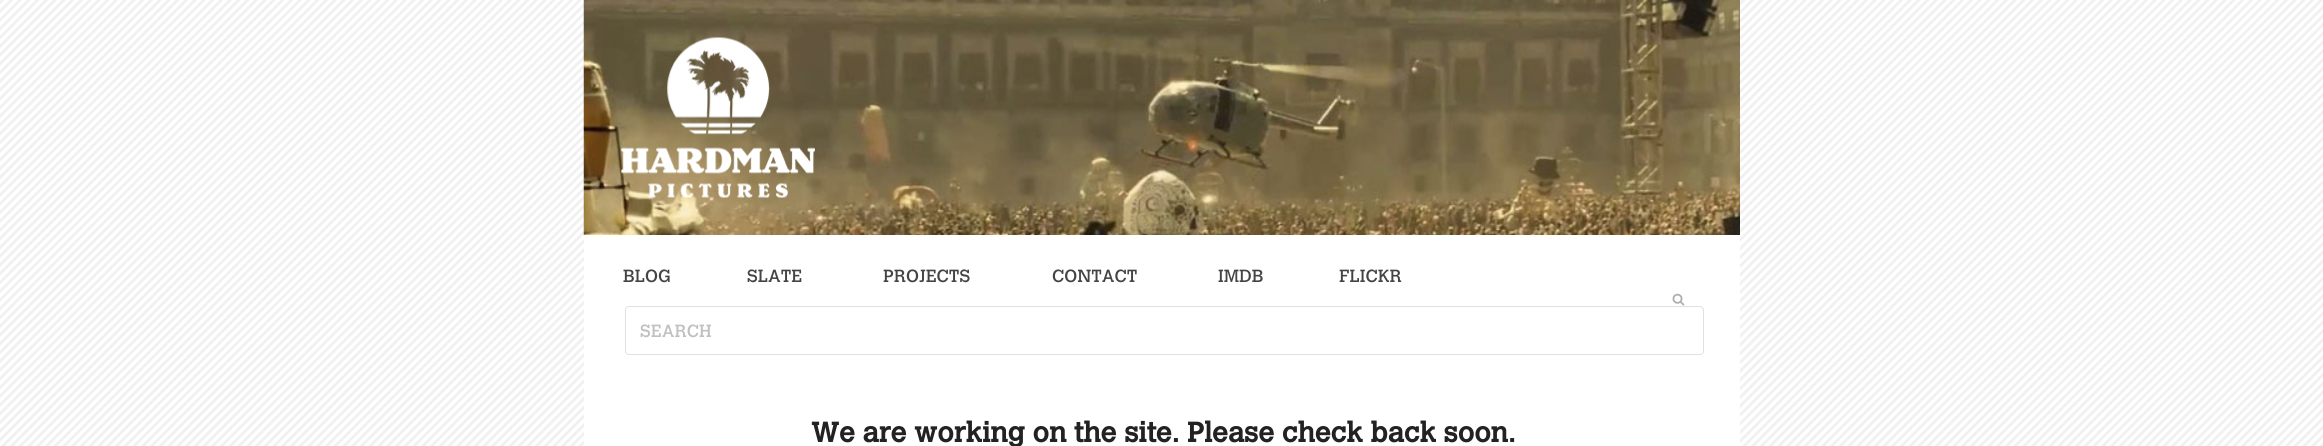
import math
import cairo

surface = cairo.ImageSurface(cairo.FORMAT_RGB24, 2323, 446)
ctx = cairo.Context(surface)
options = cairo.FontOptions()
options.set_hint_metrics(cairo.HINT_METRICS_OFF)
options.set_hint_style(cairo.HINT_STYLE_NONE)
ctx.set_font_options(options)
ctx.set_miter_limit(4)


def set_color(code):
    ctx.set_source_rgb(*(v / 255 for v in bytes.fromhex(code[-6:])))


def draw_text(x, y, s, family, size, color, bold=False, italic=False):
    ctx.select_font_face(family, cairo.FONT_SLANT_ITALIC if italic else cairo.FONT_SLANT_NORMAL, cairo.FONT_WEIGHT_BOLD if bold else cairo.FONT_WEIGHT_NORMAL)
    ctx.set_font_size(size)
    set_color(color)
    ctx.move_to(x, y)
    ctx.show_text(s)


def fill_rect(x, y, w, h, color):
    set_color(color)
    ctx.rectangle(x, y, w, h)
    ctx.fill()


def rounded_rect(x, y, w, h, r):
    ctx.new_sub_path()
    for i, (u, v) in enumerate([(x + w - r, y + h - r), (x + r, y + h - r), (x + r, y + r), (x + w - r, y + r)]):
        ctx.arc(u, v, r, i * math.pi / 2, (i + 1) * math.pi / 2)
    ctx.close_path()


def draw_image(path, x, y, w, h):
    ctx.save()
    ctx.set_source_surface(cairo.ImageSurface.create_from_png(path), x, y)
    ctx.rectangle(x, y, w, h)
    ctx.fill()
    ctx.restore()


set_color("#ffffff")
ctx.paint()
draw_image("assets/img1.png", 0, 0, 2323, 446)
fill_rect(584, 235, 1156, 211, "#ffffff")
draw_image("assets/img2.png", 583, 0, 1157, 235)
draw_image("assets/img3.png", 621, 37, 194, 161)
draw_text(623, 282, "BLOG", "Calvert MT", 17.5, "#444444")
draw_text(747, 282, "SLATE", "Calvert MT", 17.5, "#444444")
draw_text(883, 282, "PROJECTS", "Calvert MT", 17.5, "#444444")
draw_text(1052, 282, "CONTACT", "Calvert MT", 17.5, "#444444")
draw_text(1218, 282, "IMDB", "Calvert MT", 17.5, "#444444")
draw_text(1339, 282, "FLICKR", "Calvert MT", 17.5, "#444444")
draw_image("assets/img4.png", 1672, 293, 13, 13)
rounded_rect(625.5, 306.5, 1078, 48, 3.5)
set_color("#e0e0e0")
ctx.set_line_width(1)
ctx.stroke()
draw_text(640, 337, "SEARCH", "Calvert MT", 17.5, "#c0c0c0")
draw_text(811, 442, "We are working on the site. Please check back soon.", "Calvert MT", 27.7, "#222222", bold=True)
surface.write_to_png("output.png")
